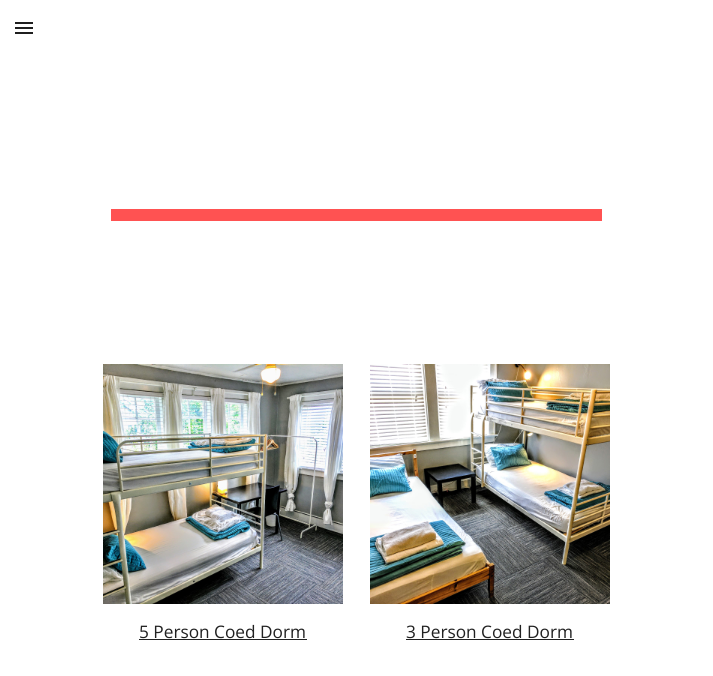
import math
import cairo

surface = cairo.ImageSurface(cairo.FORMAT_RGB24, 713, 676)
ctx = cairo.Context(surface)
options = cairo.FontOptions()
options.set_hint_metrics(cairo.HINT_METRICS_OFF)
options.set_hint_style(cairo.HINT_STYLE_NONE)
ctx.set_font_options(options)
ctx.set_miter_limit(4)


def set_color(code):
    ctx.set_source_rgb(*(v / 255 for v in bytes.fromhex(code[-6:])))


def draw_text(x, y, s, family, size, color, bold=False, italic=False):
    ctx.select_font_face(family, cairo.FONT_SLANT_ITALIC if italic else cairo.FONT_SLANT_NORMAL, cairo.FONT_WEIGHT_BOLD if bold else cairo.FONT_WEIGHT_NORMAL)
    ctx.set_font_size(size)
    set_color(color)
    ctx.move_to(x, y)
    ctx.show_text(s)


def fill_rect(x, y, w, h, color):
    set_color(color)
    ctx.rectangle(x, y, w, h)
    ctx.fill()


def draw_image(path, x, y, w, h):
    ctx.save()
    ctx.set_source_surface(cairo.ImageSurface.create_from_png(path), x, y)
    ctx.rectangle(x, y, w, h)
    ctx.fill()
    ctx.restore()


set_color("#ffffff")
ctx.paint()
fill_rect(15, 22, 18, 2, "#1f1f1f")
fill_rect(15, 27, 18, 2, "#1f1f1f")
fill_rect(15, 32, 18, 2, "#1f1f1f")
fill_rect(111, 209, 491, 12, "#ff5252")
draw_image("assets/img1.png", 103, 364, 240, 240)
draw_text(139, 638, "5 Person Coed Dorm", "Open Sans", 17.25, "#212121")
fill_rect(139, 639, 168, 1, "#212121")
draw_image("assets/img2.png", 370, 364, 240, 240)
draw_text(406, 638, "3 Person Coed Dorm", "Open Sans", 17.25, "#212121")
fill_rect(406, 639, 168, 1, "#212121")
surface.write_to_png("output.png")
